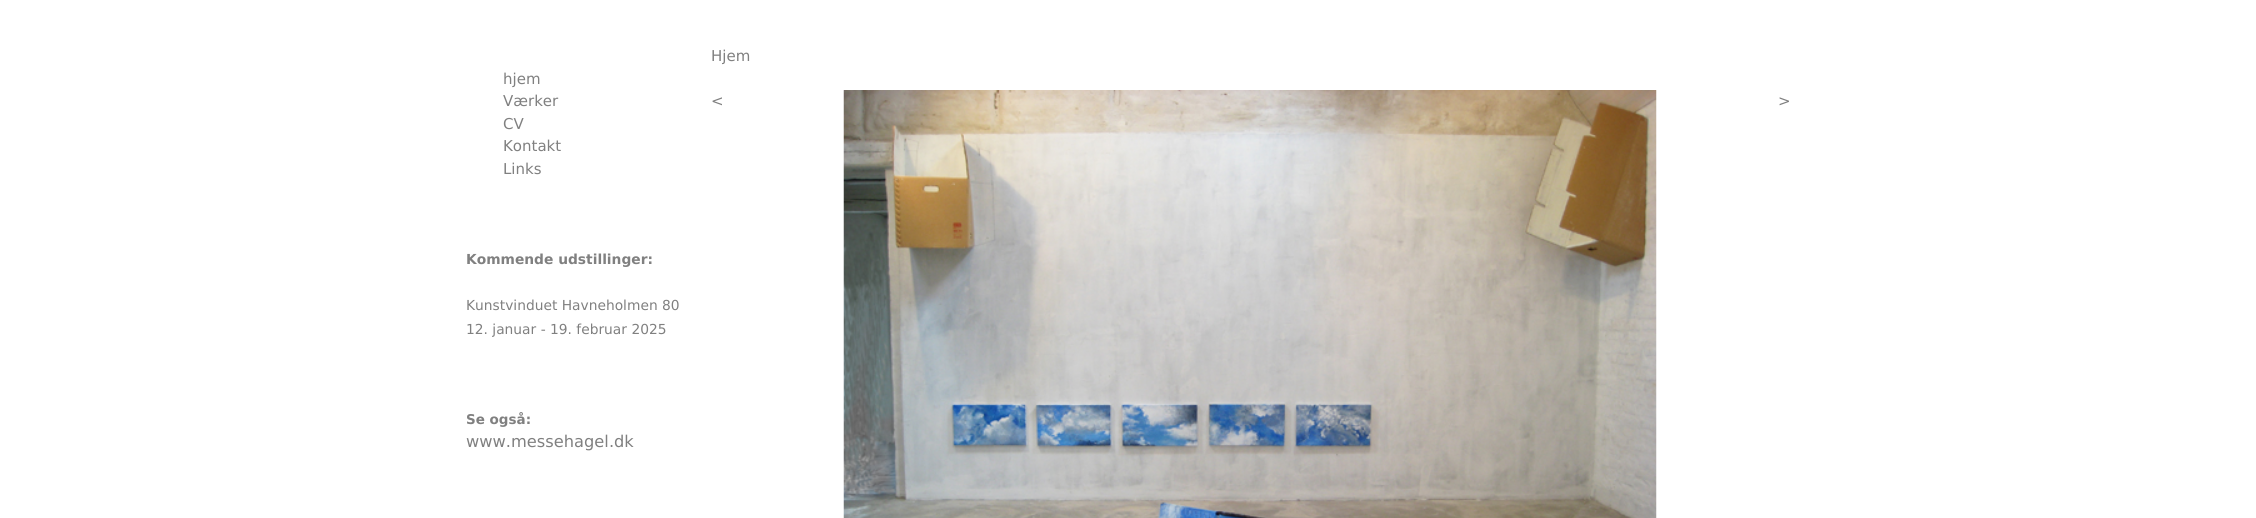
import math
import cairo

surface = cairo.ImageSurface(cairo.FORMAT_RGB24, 2256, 518)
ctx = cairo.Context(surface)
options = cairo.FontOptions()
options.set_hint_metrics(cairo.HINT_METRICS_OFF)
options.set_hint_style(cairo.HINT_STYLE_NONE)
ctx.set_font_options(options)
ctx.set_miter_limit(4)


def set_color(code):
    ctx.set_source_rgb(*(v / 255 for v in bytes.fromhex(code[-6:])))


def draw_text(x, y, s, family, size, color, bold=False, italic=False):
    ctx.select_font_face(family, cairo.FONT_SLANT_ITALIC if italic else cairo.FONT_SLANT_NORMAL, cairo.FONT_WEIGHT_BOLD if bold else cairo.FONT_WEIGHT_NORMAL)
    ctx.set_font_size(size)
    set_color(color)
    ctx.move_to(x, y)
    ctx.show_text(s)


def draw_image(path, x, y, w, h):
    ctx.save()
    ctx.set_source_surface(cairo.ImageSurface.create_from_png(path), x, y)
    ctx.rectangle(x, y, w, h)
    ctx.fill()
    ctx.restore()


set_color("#ffffff")
ctx.paint()
draw_text(503, 84, "hjem", "DejaVu Sans", 15, "#808080")
draw_text(503, 106, "Værker", "DejaVu Sans", 15, "#808080")
draw_text(503, 129, "CV", "DejaVu Sans", 15, "#808080")
draw_text(503, 151, "Kontakt", "DejaVu Sans", 15, "#808080")
draw_text(503, 174, "Links", "DejaVu Sans", 15, "#808080")
draw_text(466, 264, "Kommende udstillinger:", "DejaVu Sans", 13.8, "#808080", bold=True)
draw_text(466, 310, "Kunstvinduet Havneholmen 80", "DejaVu Sans", 13.8, "#808080")
draw_text(466, 334, "12. januar - 19. februar 2025", "DejaVu Sans", 13.8, "#808080")
draw_text(466, 424, "Se også:", "DejaVu Sans", 13.5, "#808080", bold=True)
draw_text(466, 447, "www.messehagel.dk", "DejaVu Sans", 16.25, "#808080")
draw_text(711, 61, "Hjem", "DejaVu Sans", 15, "#808080")
draw_text(711, 106, "<", "DejaVu Sans", 15, "#808080")
draw_image("assets/img1.png", 843, 90, 814, 428)
draw_text(1778, 106, ">", "DejaVu Sans", 15, "#808080")
surface.write_to_png("output.png")
